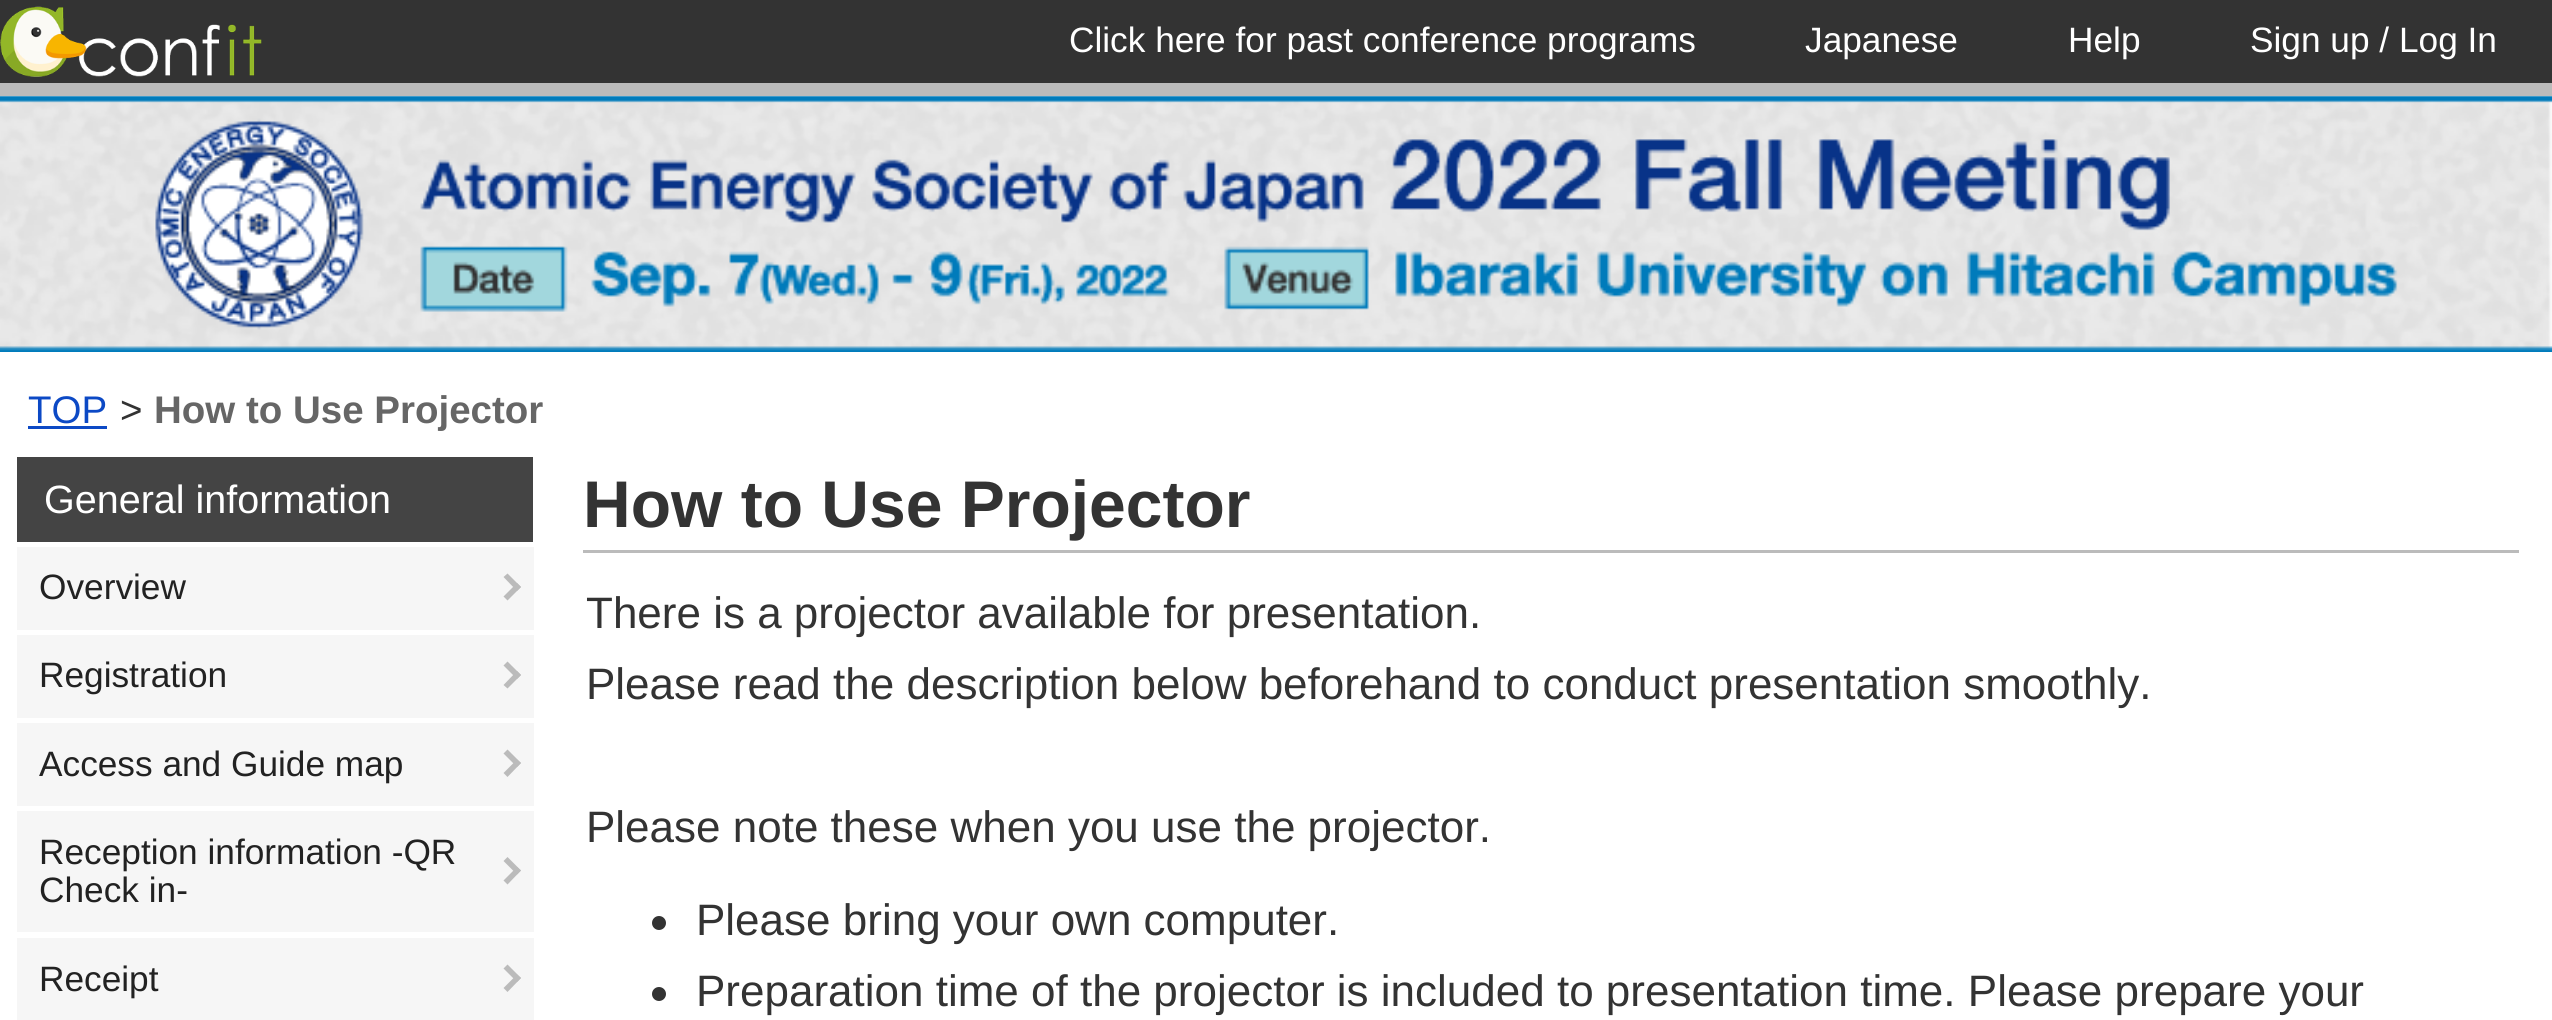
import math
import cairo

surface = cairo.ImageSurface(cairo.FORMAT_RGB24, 2552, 1020)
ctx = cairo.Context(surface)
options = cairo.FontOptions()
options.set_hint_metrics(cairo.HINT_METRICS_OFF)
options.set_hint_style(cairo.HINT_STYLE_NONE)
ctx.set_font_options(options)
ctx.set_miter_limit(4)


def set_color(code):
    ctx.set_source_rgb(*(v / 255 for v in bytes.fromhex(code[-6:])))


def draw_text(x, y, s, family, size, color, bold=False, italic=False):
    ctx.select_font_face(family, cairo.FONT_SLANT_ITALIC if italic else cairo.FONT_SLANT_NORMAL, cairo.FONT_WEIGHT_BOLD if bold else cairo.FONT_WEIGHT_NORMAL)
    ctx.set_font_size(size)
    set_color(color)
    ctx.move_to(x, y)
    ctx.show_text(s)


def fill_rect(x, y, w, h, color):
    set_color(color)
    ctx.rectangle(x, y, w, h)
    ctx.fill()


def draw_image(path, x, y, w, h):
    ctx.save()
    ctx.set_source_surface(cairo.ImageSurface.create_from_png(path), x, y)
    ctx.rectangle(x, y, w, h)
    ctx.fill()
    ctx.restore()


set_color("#ffffff")
ctx.paint()
fill_rect(0, 0, 2552, 83, "#333333")
fill_rect(0, 83, 2552, 13, "#bbbbbb")
draw_image("assets/img1.png", 0, 6, 262, 71)
draw_text(1069, 52, "Click here for past conference programs", "Liberation Sans", 35.25, "#ffffff")
draw_text(1805, 52, "Japanese", "Liberation Sans", 35.25, "#ffffff")
draw_text(2068, 52, "Help", "Liberation Sans", 35.25, "#ffffff")
draw_text(2250, 52, "Sign up / Log In", "Liberation Sans", 35.25, "#ffffff")
draw_image("assets/img2.png", 0, 96, 2552, 256)
draw_text(28, 423, "TOP", "Liberation Sans", 38.5, "#0c49c5")
fill_rect(28, 426, 79, 3, "#0c49c5")
draw_text(120, 423, ">", "Liberation Sans", 38.5, "#333333")
draw_text(154, 423, "How to Use Projector", "Liberation Sans", 38.5, "#666666", bold=True)
fill_rect(17, 457, 516, 85, "#444444")
draw_text(44, 513, "General information", "Liberation Sans", 39.5, "#ffffff")
fill_rect(17, 547, 517, 83, "#f6f6f6")
draw_text(39, 599, "Overview", "Liberation Sans", 35.25, "#222222")
set_color("#bbbbbb")
ctx.new_path()
ctx.move_to(507.5, 573.5)
ctx.line_to(521, 587)
ctx.line_to(517, 591)
ctx.line_to(503.5, 577)
ctx.close_path()
ctx.fill()
ctx.new_path()
ctx.move_to(517, 583)
ctx.line_to(521, 587)
ctx.line_to(507.5, 600.5)
ctx.line_to(503.5, 596.5)
ctx.close_path()
ctx.fill()
fill_rect(17, 635, 517, 83, "#f6f6f6")
draw_text(39, 687, "Registration", "Liberation Sans", 35.25, "#222222")
set_color("#bbbbbb")
ctx.new_path()
ctx.move_to(507.5, 661.5)
ctx.line_to(521, 675)
ctx.line_to(517, 679)
ctx.line_to(503.5, 665.5)
ctx.close_path()
ctx.fill()
ctx.new_path()
ctx.move_to(517, 671)
ctx.line_to(521, 675)
ctx.line_to(507.5, 688.5)
ctx.line_to(503.5, 685)
ctx.close_path()
ctx.fill()
fill_rect(17, 723, 517, 83, "#f6f6f6")
draw_text(39, 776, "Access and Guide map", "Liberation Sans", 35.25, "#222222")
set_color("#bbbbbb")
ctx.new_path()
ctx.move_to(507.5, 749.5)
ctx.line_to(521, 763)
ctx.line_to(517, 767)
ctx.line_to(503.5, 753.5)
ctx.close_path()
ctx.fill()
ctx.new_path()
ctx.move_to(517, 759.5)
ctx.line_to(521, 763)
ctx.line_to(507.5, 777)
ctx.line_to(503.5, 773)
ctx.close_path()
ctx.fill()
fill_rect(17, 811, 517, 121, "#f6f6f6")
draw_text(39, 864, "Reception information -QR", "Liberation Sans", 35.25, "#222222")
set_color("#bbbbbb")
ctx.new_path()
ctx.move_to(507.5, 857)
ctx.line_to(521, 870.5)
ctx.line_to(517, 874.5)
ctx.line_to(503.5, 861)
ctx.close_path()
ctx.fill()
ctx.new_path()
ctx.move_to(517, 867)
ctx.line_to(521, 870.5)
ctx.line_to(507.5, 884.5)
ctx.line_to(503.5, 880.5)
ctx.close_path()
ctx.fill()
draw_text(39, 902, "Check in-", "Liberation Sans", 35.25, "#222222")
fill_rect(17, 938, 517, 82, "#f6f6f6")
draw_text(39, 991, "Receipt", "Liberation Sans", 35.25, "#222222")
set_color("#bbbbbb")
ctx.new_path()
ctx.move_to(507.5, 964.5)
ctx.line_to(521, 978)
ctx.line_to(517, 982)
ctx.line_to(503.5, 968.5)
ctx.close_path()
ctx.fill()
ctx.new_path()
ctx.move_to(517, 974.5)
ctx.line_to(521, 978)
ctx.line_to(507.5, 992)
ctx.line_to(503.5, 988)
ctx.close_path()
ctx.fill()
fill_rect(583, 550, 1936, 3, "#bbbbbb")
draw_text(583, 527, "How to Use Projector", "Liberation Sans", 66, "#333333", bold=True)
draw_text(586, 628, "There is a projector available for presentation.", "Liberation Sans", 44, "#333333")
draw_text(586, 699, "Please read the description below beforehand to conduct presentation smoothly.", "Liberation Sans", 44, "#333333")
draw_text(586, 842, "Please note these when you use the projector.", "Liberation Sans", 44, "#333333")
ctx.new_path()
ctx.arc(659, 923, 7, 0, 2 * math.pi)
ctx.fill()
draw_text(696, 935, "Please bring your own computer.", "Liberation Sans", 44, "#333333")
ctx.new_path()
ctx.arc(659, 994, 7, 0, 2 * math.pi)
ctx.fill()
draw_text(696, 1006, "Preparation time of the projector is included to presentation time. Please prepare your", "Liberation Sans", 44, "#333333")
surface.write_to_png("output.png")
